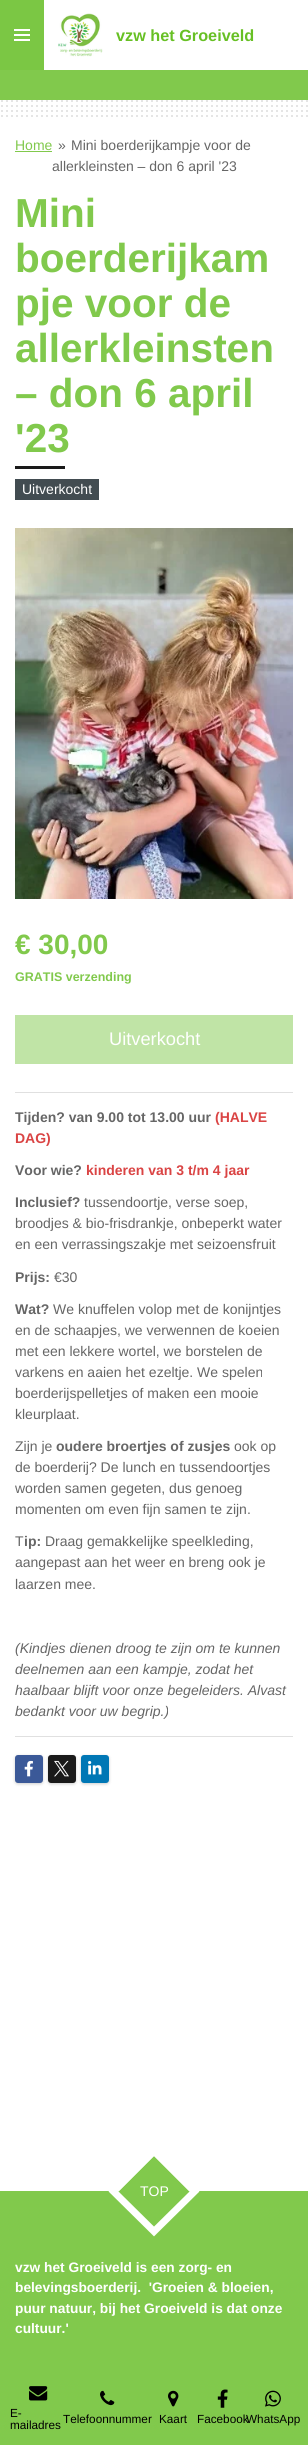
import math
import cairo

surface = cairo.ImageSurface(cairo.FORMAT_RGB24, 308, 2445)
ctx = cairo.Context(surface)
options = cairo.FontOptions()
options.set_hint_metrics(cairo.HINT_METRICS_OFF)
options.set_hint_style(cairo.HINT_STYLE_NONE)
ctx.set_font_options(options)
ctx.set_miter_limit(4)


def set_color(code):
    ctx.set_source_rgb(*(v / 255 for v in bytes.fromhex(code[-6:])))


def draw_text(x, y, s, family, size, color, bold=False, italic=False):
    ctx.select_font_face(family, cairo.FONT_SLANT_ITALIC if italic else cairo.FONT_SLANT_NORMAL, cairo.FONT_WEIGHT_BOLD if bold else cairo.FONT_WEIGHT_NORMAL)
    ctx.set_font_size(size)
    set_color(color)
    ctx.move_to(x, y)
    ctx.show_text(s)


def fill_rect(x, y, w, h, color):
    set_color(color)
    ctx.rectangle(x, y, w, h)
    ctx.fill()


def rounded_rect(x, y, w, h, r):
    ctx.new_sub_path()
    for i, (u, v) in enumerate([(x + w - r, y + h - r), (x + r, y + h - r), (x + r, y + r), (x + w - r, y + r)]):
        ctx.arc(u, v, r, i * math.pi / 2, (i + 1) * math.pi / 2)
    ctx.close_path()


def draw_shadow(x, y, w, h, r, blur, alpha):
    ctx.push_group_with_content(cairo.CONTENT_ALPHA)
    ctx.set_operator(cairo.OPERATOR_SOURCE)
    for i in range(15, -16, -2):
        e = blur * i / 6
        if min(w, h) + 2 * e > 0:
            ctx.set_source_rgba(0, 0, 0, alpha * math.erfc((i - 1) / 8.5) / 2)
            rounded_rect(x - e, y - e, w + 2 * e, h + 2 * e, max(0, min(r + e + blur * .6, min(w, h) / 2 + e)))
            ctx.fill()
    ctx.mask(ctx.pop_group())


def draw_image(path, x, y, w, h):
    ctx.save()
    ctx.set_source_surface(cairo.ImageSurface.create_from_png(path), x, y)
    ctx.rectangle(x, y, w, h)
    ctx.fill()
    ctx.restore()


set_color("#ffffff")
ctx.paint()
fill_rect(0, 0, 44, 70, "#7bc744")
fill_rect(14, 34, 16, 2, "#ffffff")
fill_rect(14, 29, 16, 2, "#ffffff")
fill_rect(14, 39, 16, 2, "#ffffff")
draw_image("assets/img1.png", 58, 13, 45, 44)
draw_text(116, 41, "vzw het Groeiveld", "Liberation Sans", 16.25, "#67c024", bold=True)
draw_image("assets/img2.png", 1, 100, 307, 17)
fill_rect(0, 70, 308, 30, "#81c94c")
draw_text(15, 150, "Home", "Liberation Sans", 14, "#81c94c")
fill_rect(15, 151, 37, 1, "#81c94c")
draw_text(58, 150, "»", "Liberation Sans", 14, "#666666")
draw_text(71, 150, "Mini boerderijkampje voor de", "Liberation Sans", 14, "#666666")
draw_text(52, 171, "allerkleinsten – don 6 april '23", "Liberation Sans", 14, "#666666")
draw_text(15, 227, "Mini", "Liberation Sans", 40.5, "#81c94c", bold=True)
draw_text(15, 272, "boerderijkam", "Liberation Sans", 40.5, "#81c94c", bold=True)
draw_text(15, 317, "pje voor de", "Liberation Sans", 40.5, "#81c94c", bold=True)
draw_text(15, 362, "allerkleinsten", "Liberation Sans", 40.5, "#81c94c", bold=True)
draw_text(15, 407, "– don 6 april", "Liberation Sans", 40.5, "#81c94c", bold=True)
draw_text(15, 452, "'23", "Liberation Sans", 40.5, "#81c94c", bold=True)
fill_rect(15, 466, 50, 3, "#1a1a1a")
fill_rect(15, 479, 84, 21, "#424c51")
draw_text(22, 494, "Uitverkocht", "Liberation Sans", 14, "#ffffff")
draw_image("assets/img3.png", 15, 528, 278, 371)
draw_text(15, 954, "€ 30,00", "Liberation Sans", 28, "#81c94c", bold=True)
draw_text(15, 981, "GRATIS verzending", "Liberation Sans", 12.5, "#81c94c", bold=True)
fill_rect(15, 1015, 278, 49, "#c0e4a6")
draw_text(109, 1045, "Uitverkocht", "Liberation Sans", 18.25, "#ffffff")
fill_rect(15, 1092, 278, 1, "#e0e0e0")
draw_text(15, 1122, "Tijden? van 9.00 tot 13.00 uur", "Liberation Sans", 14, "#666666", bold=True)
draw_text(215, 1122, "(HALVE", "Liberation Sans", 14, "#da4444", bold=True)
draw_text(15, 1143, "DAG)", "Liberation Sans", 14, "#da4444", bold=True)
draw_text(15, 1175, "Voor wie?", "Liberation Sans", 14, "#666666", bold=True)
draw_text(86, 1175, "kinderen van 3 t/m 4 jaar", "Liberation Sans", 14, "#da4444", bold=True)
draw_text(15, 1207, "Inclusief?", "Liberation Sans", 14, "#666666", bold=True)
draw_text(84, 1207, "tussendoortje, verse soep,", "Liberation Sans", 14, "#666666")
draw_text(15, 1228, "broodjes & bio-frisdrankje, onbeperkt water", "Liberation Sans", 14, "#666666")
draw_text(15, 1249, "en een verrassingszakje met seizoensfruit", "Liberation Sans", 14, "#666666")
draw_text(15, 1282, "Prijs:", "Liberation Sans", 14, "#666666", bold=True)
draw_text(54, 1282, "€30", "Liberation Sans", 14, "#666666")
draw_text(15, 1314, "Wat?", "Liberation Sans", 14, "#666666", bold=True)
draw_text(53, 1314, "We knuffelen volop met de konijntjes", "Liberation Sans", 14, "#666666")
draw_text(15, 1335, "en de schaapjes, we verwennen de koeien", "Liberation Sans", 14, "#666666")
draw_text(15, 1356, "met een lekkere wortel, we borstelen de", "Liberation Sans", 14, "#666666")
draw_text(15, 1377, "varkens en aaien het ezeltje. We spelen", "Liberation Sans", 14, "#666666")
draw_text(15, 1398, "boerderijspelletjes of maken een mooie", "Liberation Sans", 14, "#666666")
draw_text(15, 1419, "kleurplaat.", "Liberation Sans", 14, "#666666")
draw_text(15, 1451, "Zijn je", "Liberation Sans", 14, "#666666")
draw_text(56, 1451, "oudere broertjes of zusjes", "Liberation Sans", 14, "#666666", bold=True)
draw_text(234, 1451, "ook op", "Liberation Sans", 14, "#666666")
draw_text(15, 1472, "de boerderij? De lunch en tussendoortjes", "Liberation Sans", 14, "#666666")
draw_text(15, 1493, "worden samen gegeten, dus genoeg", "Liberation Sans", 14, "#666666")
draw_text(15, 1514, "momenten om even fijn samen te zijn.", "Liberation Sans", 14, "#666666")
draw_text(15, 1546, "T", "Liberation Sans", 14, "#666666")
draw_text(24, 1546, "ip:", "Liberation Sans", 14, "#666666", bold=True)
draw_text(45, 1546, "Draag gemakkelijke speelkleding,", "Liberation Sans", 14, "#666666")
draw_text(15, 1567, "aangepast aan het weer en breng ook je", "Liberation Sans", 14, "#666666")
draw_text(15, 1589, "laarzen mee.", "Liberation Sans", 14, "#666666")
draw_text(15, 1653, "(Kindjes dienen droog te zijn om te kunnen", "Liberation Sans", 14, "#666666", italic=True)
draw_text(15, 1674, "deelnemen aan een kampje, zodat het", "Liberation Sans", 14, "#666666", italic=True)
draw_text(15, 1695, "haalbaar blijft voor onze begeleiders. Alvast", "Liberation Sans", 14, "#666666", italic=True)
draw_text(15, 1716, "bedankt voor uw begrip.)", "Liberation Sans", 14, "#666666", italic=True)
fill_rect(15, 1736, 278, 1, "#e0e0e0")
set_color("#000000")
draw_shadow(15, 1756, 28, 28, 3, 1.5, 0.2)
set_color("#3b5998")
rounded_rect(15, 1755, 28, 28, 3)
ctx.fill()
draw_image("assets/img4.png", 24, 1760, 9, 17)
set_color("#000000")
draw_shadow(48, 1756, 28, 28, 3, 1.5, 0.2)
set_color("#1a1a1a")
rounded_rect(48, 1755, 28, 28, 3)
ctx.fill()
draw_image("assets/img5.png", 54, 1760, 15, 17)
set_color("#000000")
draw_shadow(81, 1756, 28, 28, 3, 1.5, 0.2)
set_color("#0077b5")
rounded_rect(81, 1755, 28, 28, 3)
ctx.fill()
draw_image("assets/img6.png", 88, 1760, 14, 15)
fill_rect(0, 2191, 308, 254, "#81c94c")
ctx.new_path()
ctx.move_to(154, 2156)
ctx.line_to(189, 2191)
ctx.line_to(154, 2227)
ctx.line_to(119, 2191)
ctx.close_path()
ctx.fill()
ctx.new_path()
ctx.move_to(154, 2151)
ctx.line_to(194.5, 2191.5)
ctx.line_to(154, 2231.5)
ctx.line_to(113.5, 2191.5)
ctx.close_path()
set_color("#ffffff")
ctx.set_line_width(7)
ctx.stroke()
draw_text(140, 2196, "TOP", "Liberation Sans", 14, "#ffffff")
draw_text(15, 2272, "vzw het Groeiveld is een zorg- en", "Liberation Sans", 13.75, "#ffffff", bold=True)
draw_text(15, 2292, "belevingsboerderij.  'Groeien & bloeien,", "Liberation Sans", 13.75, "#ffffff", bold=True)
draw_text(15, 2313, "puur natuur, bij het Groeiveld is dat onze", "Liberation Sans", 13.75, "#ffffff", bold=True)
draw_text(15, 2333, "cultuur.'", "Liberation Sans", 13.75, "#ffffff", bold=True)
draw_image("assets/img7.png", 29, 2386, 19, 15)
draw_text(10, 2417, "E-", "Liberation Sans", 11.75, "#000000")
draw_text(10, 2429, "mailadres", "Liberation Sans", 11.75, "#000000")
draw_image("assets/img8.png", 100, 2390, 15, 16)
draw_text(63, 2423, "Telefoonnummer", "Liberation Sans", 11.75, "#000000")
draw_image("assets/img9.png", 168, 2390, 11, 17)
draw_text(159, 2423, "Kaart", "Liberation Sans", 11.75, "#000000")
draw_image("assets/img10.png", 217, 2389, 11, 19)
draw_text(197, 2423, "Facebook", "Liberation Sans", 11.75, "#000000")
draw_image("assets/img11.png", 265, 2390, 16, 17)
draw_text(246, 2423, "WhatsApp", "Liberation Sans", 11.75, "#000000")
surface.write_to_png("output.png")
